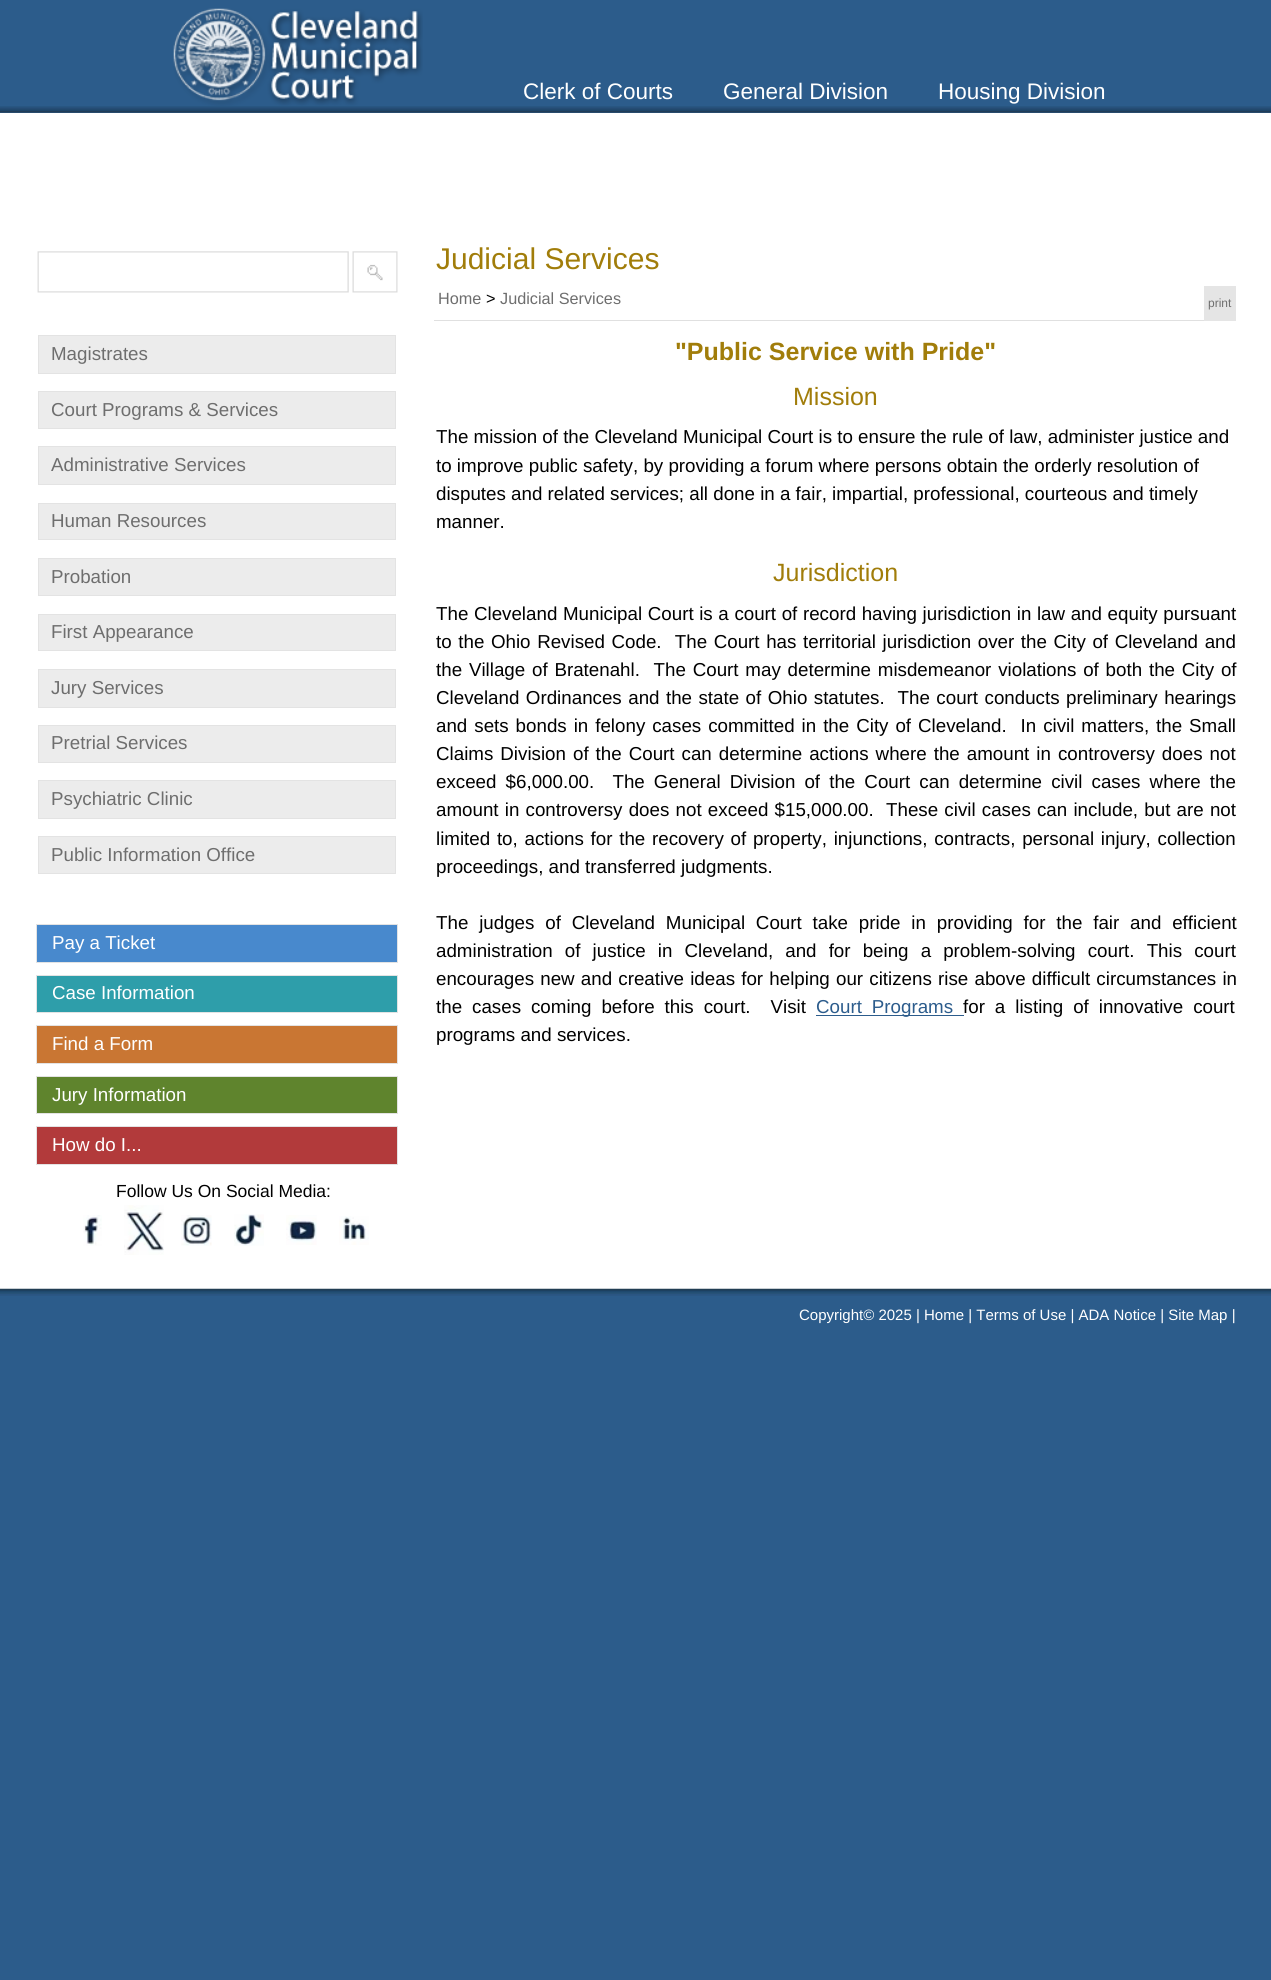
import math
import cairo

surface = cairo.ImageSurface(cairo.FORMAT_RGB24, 1271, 1980)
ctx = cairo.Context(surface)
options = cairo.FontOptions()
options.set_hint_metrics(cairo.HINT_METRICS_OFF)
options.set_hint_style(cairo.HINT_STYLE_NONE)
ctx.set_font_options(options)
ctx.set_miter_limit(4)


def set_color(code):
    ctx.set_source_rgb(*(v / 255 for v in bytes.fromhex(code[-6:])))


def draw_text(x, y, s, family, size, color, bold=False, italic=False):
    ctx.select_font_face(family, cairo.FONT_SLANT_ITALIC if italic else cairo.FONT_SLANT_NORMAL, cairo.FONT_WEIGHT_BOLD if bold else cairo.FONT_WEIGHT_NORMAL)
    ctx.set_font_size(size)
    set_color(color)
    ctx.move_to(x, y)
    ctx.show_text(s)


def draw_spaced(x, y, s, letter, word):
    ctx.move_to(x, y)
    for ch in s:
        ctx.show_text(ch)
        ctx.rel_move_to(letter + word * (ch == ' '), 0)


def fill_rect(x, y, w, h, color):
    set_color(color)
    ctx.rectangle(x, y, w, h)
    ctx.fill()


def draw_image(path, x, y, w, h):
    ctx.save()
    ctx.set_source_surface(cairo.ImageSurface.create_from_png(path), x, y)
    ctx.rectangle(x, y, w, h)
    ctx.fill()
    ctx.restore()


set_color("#2c5c8b")
ctx.paint()
draw_image("assets/img1.png", 0, 106, 1271, 7)
draw_image("assets/img2.png", 173, 8, 250, 98)
draw_text(523, 99, "Clerk of Courts", "Liberation Sans", 22.5, "#ffffff")
draw_text(723, 99, "General Division", "Liberation Sans", 22.5, "#ffffff")
draw_text(938, 99, "Housing Division", "Liberation Sans", 22.5, "#ffffff")
fill_rect(0, 113, 1271, 1176, "#ffffff")
draw_image("assets/img3.png", 37, 251, 312, 42)
draw_image("assets/img4.png", 352, 251, 46, 42)
set_color("#ececec")
ctx.rectangle(38.5, 335.5, 357, 38)
ctx.fill_preserve()
set_color("#e3e3e3")
ctx.set_line_width(1)
ctx.stroke()
draw_text(51, 360, "Magistrates", "Liberation Sans", 18.75, "#6e6e6e")
set_color("#ececec")
ctx.rectangle(38.5, 391.5, 357, 37)
ctx.fill_preserve()
set_color("#e3e3e3")
ctx.stroke()
draw_text(51, 416, "Court Programs & Services", "Liberation Sans", 18.75, "#6e6e6e")
set_color("#ececec")
ctx.rectangle(38.5, 446.5, 357, 38)
ctx.fill_preserve()
set_color("#e3e3e3")
ctx.stroke()
draw_text(51, 471, "Administrative Services", "Liberation Sans", 18.75, "#6e6e6e")
set_color("#ececec")
ctx.rectangle(38.5, 503.5, 357, 36)
ctx.fill_preserve()
set_color("#e3e3e3")
ctx.stroke()
draw_text(51, 527, "Human Resources", "Liberation Sans", 18.75, "#6e6e6e")
set_color("#ececec")
ctx.rectangle(38.5, 558.5, 357, 37)
ctx.fill_preserve()
set_color("#e3e3e3")
ctx.stroke()
draw_text(51, 583, "Probation", "Liberation Sans", 18.75, "#6e6e6e")
set_color("#ececec")
ctx.rectangle(38.5, 614.5, 357, 36)
ctx.fill_preserve()
set_color("#e3e3e3")
ctx.stroke()
draw_text(51, 638, "First Appearance", "Liberation Sans", 18.75, "#6e6e6e")
set_color("#ececec")
ctx.rectangle(38.5, 669.5, 357, 38)
ctx.fill_preserve()
set_color("#e3e3e3")
ctx.stroke()
draw_text(51, 694, "Jury Services", "Liberation Sans", 18.75, "#6e6e6e")
set_color("#ececec")
ctx.rectangle(38.5, 725.5, 357, 37)
ctx.fill_preserve()
set_color("#e3e3e3")
ctx.stroke()
draw_text(51, 749, "Pretrial Services", "Liberation Sans", 18.75, "#6e6e6e")
set_color("#ececec")
ctx.rectangle(38.5, 780.5, 357, 38)
ctx.fill_preserve()
set_color("#e3e3e3")
ctx.stroke()
draw_text(51, 805, "Psychiatric Clinic", "Liberation Sans", 18.75, "#6e6e6e")
set_color("#ececec")
ctx.rectangle(38.5, 836.5, 357, 37)
ctx.fill_preserve()
set_color("#e3e3e3")
ctx.stroke()
draw_text(51, 861, "Public Information Office", "Liberation Sans", 18.75, "#6e6e6e")
set_color("#4889cd")
ctx.rectangle(36.5, 924.5, 361, 38)
ctx.fill_preserve()
set_color("#e3e3e3")
ctx.stroke()
draw_text(52, 949, "Pay a Ticket", "Liberation Sans", 18.75, "#ffffff")
set_color("#2e9eaa")
ctx.rectangle(36.5, 975.5, 361, 37)
ctx.fill_preserve()
set_color("#e3e3e3")
ctx.stroke()
draw_text(52, 999, "Case Information", "Liberation Sans", 18.75, "#ffffff")
set_color("#c97633")
ctx.rectangle(36.5, 1025.5, 361, 38)
ctx.fill_preserve()
set_color("#e3e3e3")
ctx.stroke()
draw_text(52, 1050, "Find a Form", "Liberation Sans", 18.75, "#ffffff")
set_color("#5f842d")
ctx.rectangle(36.5, 1076.5, 361, 37)
ctx.fill_preserve()
set_color("#e3e3e3")
ctx.stroke()
draw_text(52, 1101, "Jury Information", "Liberation Sans", 18.75, "#ffffff")
set_color("#b23a3b")
ctx.rectangle(36.5, 1126.5, 361, 38)
ctx.fill_preserve()
set_color("#e3e3e3")
ctx.stroke()
draw_text(52, 1151, "How do I...", "Liberation Sans", 18.75, "#ffffff")
draw_text(116, 1197, "Follow Us On Social Media:", "Liberation Sans", 17.5, "#000000")
draw_image("assets/img5.png", 83, 1215, 19, 31)
draw_image("assets/img6.png", 124, 1205, 40, 50)
draw_image("assets/img7.png", 181, 1215, 31, 31)
draw_image("assets/img8.png", 234, 1214, 30, 32)
draw_image("assets/img9.png", 286, 1215, 31, 30)
draw_image("assets/img10.png", 339, 1216, 30, 29)
draw_text(436, 269, "Judicial Services", "Liberation Sans", 30, "#a17d0a")
fill_rect(434, 320, 770, 1, "#e0e0e0")
draw_text(438, 304, "Home", "Liberation Sans", 16.25, "#6e6e6e")
draw_text(486, 304, ">", "Liberation Sans", 16.25, "#000000")
draw_text(500, 304, "Judicial Services", "Liberation Sans", 16.25, "#6e6e6e")
fill_rect(1204, 286, 32, 35, "#e5e5e5")
draw_text(1208, 307, "print", "Liberation Sans", 12, "#6e6e6e")
draw_text(675, 360, "\"Public Service with Pride\"", "Liberation Sans", 25, "#a17d0a", bold=True)
draw_text(793, 405, "Mission", "Liberation Sans", 25, "#a17d0a")
draw_text(436, 443, "The mission of the Cleveland Municipal Court is to ensure the rule of law, administer justice and", "Liberation Sans", 18.75, "#000000")
draw_text(436, 472, "to improve public safety, by providing a forum where persons obtain the orderly resolution of", "Liberation Sans", 18.75, "#000000")
draw_text(436, 500, "disputes and related services; all done in a fair, impartial, professional, courteous and timely", "Liberation Sans", 18.75, "#000000")
draw_text(436, 528, "manner.", "Liberation Sans", 18.75, "#000000")
draw_text(773, 581, "Jurisdiction", "Liberation Sans", 25, "#a17d0a")
ctx.set_font_size(18.75)
set_color("#000000")
draw_spaced(436, 620, "The Cleveland Municipal Court is a court of record having jurisdiction in law and equity pursuant", 0, 0.4)
draw_spaced(436, 648, "to the Ohio Revised Code.  The Court has territorial jurisdiction over the City of Cleveland and", 0, 1.4)
draw_spaced(436, 676, "the Village of Bratenahl.  The Court may determine misdemeanor violations of both the City of", 0, 1.6)
draw_spaced(436, 704, "Cleveland Ordinances and the state of Ohio statutes.  The court conducts preliminary hearings", 0, 1.25)
draw_spaced(436, 732, "and sets bonds in felony cases committed in the City of Cleveland.  In civil matters, the Small", 0, 1.75)
draw_spaced(436, 760, "Claims Division of the Court can determine actions where the amount in controversy does not", 0, 1.8)
draw_spaced(436, 788, "exceed $6,000.00.  The General Division of the Court can determine civil cases where the", 0, 3.9)
draw_spaced(436, 816, "amount in controversy does not exceed $15,000.00.  These civil cases can include, but are not", 0, 1)
draw_spaced(436, 845, "limited to, actions for the recovery of property, injunctions, contracts, personal injury, collection", 0, 1.5)
draw_text(436, 873, "proceedings, and transferred judgments.", "Liberation Sans", 18.75, "#000000")
draw_spaced(436, 929, "The judges of Cleveland Municipal Court take pride in providing for the fair and efficient", 0, 5.6)
draw_spaced(436, 957, "administration of justice in Cleveland, and for being a problem-solving court. This court", 0, 6.9)
draw_spaced(436, 985, "encourages new and creative ideas for helping our citizens rise above difficult circumstances in", 0, 1)
draw_spaced(436, 1013, "the cases coming before this court.  Visit", 0, 4.75)
fill_rect(816, 1015, 148, 1, "#2c5c8c")
draw_spaced(816, 1013, "Court Programs", 0, 4.75)
set_color("#000000")
draw_spaced(963, 1013, "for a listing of innovative court", 0, 4.75)
draw_text(436, 1041, "programs and services.", "Liberation Sans", 18.75, "#000000")
draw_image("assets/img11.png", 0, 1288, 1271, 8)
draw_text(799, 1320, "Copyright© 2025 | Home | Terms of Use | ADA Notice | Site Map |", "Liberation Sans", 15, "#ffffff")
surface.write_to_png("output.png")
